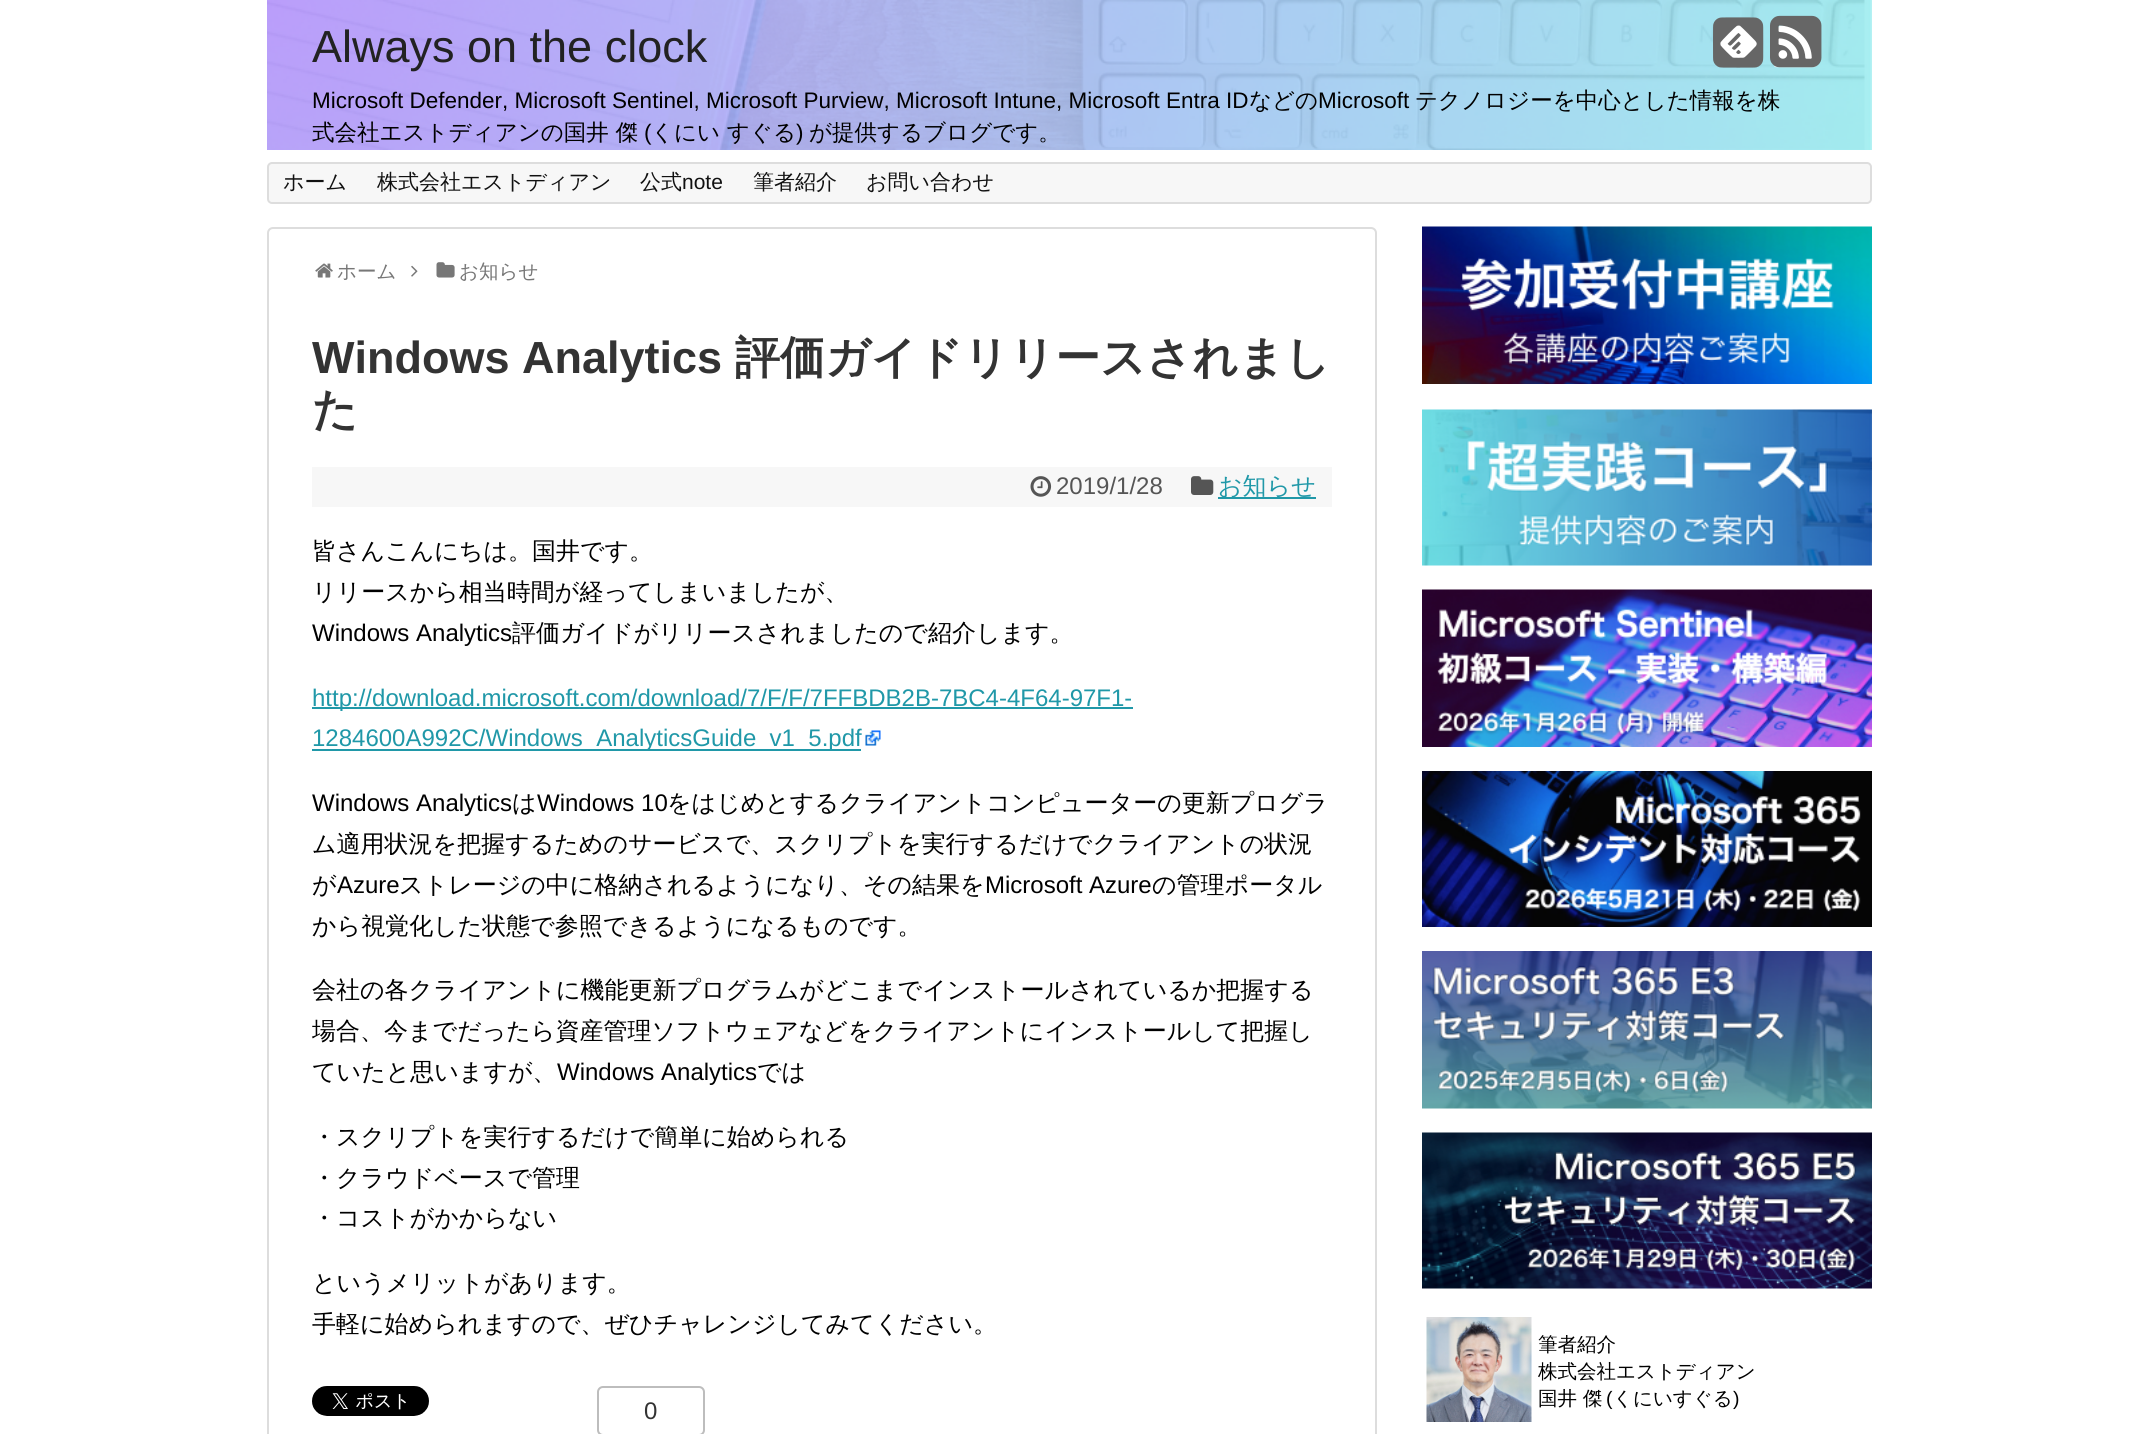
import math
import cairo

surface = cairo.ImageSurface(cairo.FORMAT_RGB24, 2138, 1434)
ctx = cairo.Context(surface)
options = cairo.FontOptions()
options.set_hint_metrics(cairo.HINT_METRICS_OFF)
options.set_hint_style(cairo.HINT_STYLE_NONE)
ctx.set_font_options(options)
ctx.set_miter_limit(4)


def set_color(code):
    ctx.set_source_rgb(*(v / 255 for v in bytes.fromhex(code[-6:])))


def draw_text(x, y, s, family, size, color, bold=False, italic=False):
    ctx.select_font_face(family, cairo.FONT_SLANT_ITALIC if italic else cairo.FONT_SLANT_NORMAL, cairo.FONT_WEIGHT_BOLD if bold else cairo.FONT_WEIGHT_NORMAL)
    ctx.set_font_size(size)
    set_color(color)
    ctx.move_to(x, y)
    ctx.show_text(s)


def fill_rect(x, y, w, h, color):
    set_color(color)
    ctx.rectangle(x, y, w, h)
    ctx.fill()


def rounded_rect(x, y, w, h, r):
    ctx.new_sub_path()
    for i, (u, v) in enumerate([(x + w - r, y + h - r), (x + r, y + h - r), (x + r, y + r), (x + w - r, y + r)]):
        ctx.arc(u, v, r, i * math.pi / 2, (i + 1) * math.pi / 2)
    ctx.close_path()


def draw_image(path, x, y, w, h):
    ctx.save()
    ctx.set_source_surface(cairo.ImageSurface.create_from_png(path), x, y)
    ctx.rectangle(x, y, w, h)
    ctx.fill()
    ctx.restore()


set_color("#ffffff")
ctx.paint()
draw_image("assets/img1.png", 267, 0, 1605, 150)
draw_image("assets/img2.png", 1720, 25, 37, 33)
draw_image("assets/img3.png", 1713, 17, 51, 51)
draw_image("assets/img4.png", 1774, 25, 45, 43)
draw_image("assets/img5.png", 1770, 15, 52, 53)
draw_text(312, 62, "Always on the clock", "Liberation Sans", 45, "#222222")
draw_text(312, 108, "Microsoft Defender, Microsoft Sentinel, Microsoft Purview, Microsoft Intune, Microsoft Entra ID", "Liberation Sans", 22.5, "#000000")
draw_text(1249, 108, "などの", "WenQuanYi Zen Hei Medium", 22.5, "#000000")
draw_text(1318, 108, "Microsoft", "Liberation Sans", 22.5, "#000000")
draw_text(1415, 108, "テクノロジーを中心とした情報を株", "WenQuanYi Zen Hei Medium", 22.5, "#000000")
draw_text(312, 140, "式会社エストディアンの国井 傑", "WenQuanYi Zen Hei Medium", 22.5, "#000000")
draw_text(644, 140, "(", "Liberation Sans", 22.5, "#000000")
draw_text(651, 140, "くにい すぐる", "WenQuanYi Zen Hei Medium", 22.5, "#000000")
draw_text(796, 140, ")", "Liberation Sans", 22.5, "#000000")
draw_text(809, 140, "が提供するブログです。", "WenQuanYi Zen Hei Medium", 22.5, "#000000")
set_color("#f7f7f7")
rounded_rect(268, 163, 1603, 40, 4)
ctx.fill_preserve()
set_color("#dddddd")
ctx.stroke()
draw_text(283, 189, "ホーム", "WenQuanYi Zen Hei Medium", 21, "#111111")
draw_text(377, 189, "株式会社エストディアン", "WenQuanYi Zen Hei Medium", 21, "#111111")
draw_text(640, 189, "公式", "WenQuanYi Zen Hei Medium", 21, "#111111")
draw_text(682, 189, "note", "Liberation Sans", 21, "#111111")
draw_text(753, 189, "筆者紹介", "WenQuanYi Zen Hei Medium", 21, "#111111")
draw_text(866, 189, "お問い合わせ", "WenQuanYi Zen Hei Medium", 21, "#111111")
rounded_rect(268, 228, 1108, 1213, 5)
set_color("#dddddd")
ctx.stroke()
draw_image("assets/img6.png", 315, 263, 18, 15)
draw_text(337, 278, "ホーム", "WenQuanYi Zen Hei Medium", 19.5, "#777777")
draw_image("assets/img7.png", 411, 265, 7, 12)
draw_image("assets/img8.png", 436, 262, 19, 16)
draw_text(459, 278, "お知らせ", "WenQuanYi Zen Hei Medium", 19.5, "#777777")
draw_text(312, 373, "Windows Analytics", "Liberation Sans", 45, "#333333", bold=True)
draw_text(735, 373, "評価ガイドリリースされまし", "WenQuanYi Zen Hei", 45, "#333333", bold=True)
draw_text(312, 425, "た", "WenQuanYi Zen Hei", 45, "#333333", bold=True)
fill_rect(312, 467, 1020, 40, "#f7f7f7")
draw_image("assets/img9.png", 1030, 476, 22, 21)
draw_text(1056, 494, "2019/1/28", "Liberation Sans", 24, "#555555")
draw_image("assets/img10.png", 1191, 476, 23, 19)
fill_rect(1218, 497, 98, 2, "#2098a8")
draw_text(1218, 494, "お知らせ", "WenQuanYi Zen Hei Medium", 24, "#2098a8")
draw_text(312, 559, "皆さんこんにちは。国井です。", "WenQuanYi Zen Hei Medium", 24, "#000000")
draw_text(312, 600, "リリースから相当時間が経ってしまいましたが、", "WenQuanYi Zen Hei Medium", 24, "#000000")
draw_text(312, 641, "Windows Analytics", "Liberation Sans", 24, "#000000")
draw_text(512, 641, "評価ガイドがリリースされましたので紹介します。", "WenQuanYi Zen Hei Medium", 24, "#000000")
fill_rect(312, 707, 821, 2, "#2098a8")
draw_text(312, 706, "http://download.microsoft.com/download/7/F/F/7FFBDB2B-7BC4-4F64-97F1-", "Liberation Sans", 24, "#2098a8")
fill_rect(312, 749, 549, 2, "#2098a8")
draw_text(312, 746, "1284600A992C/Windows_AnalyticsGuide_v1_5.pdf", "Liberation Sans", 24, "#2098a8")
draw_image("assets/img11.png", 865, 730, 16, 16)
draw_text(312, 811, "Windows Analytics", "Liberation Sans", 24, "#000000")
draw_text(512, 811, "は", "WenQuanYi Zen Hei Medium", 24, "#000000")
draw_text(537, 811, "Windows 10", "Liberation Sans", 24, "#000000")
draw_text(667, 811, "をはじめとするクライアントコンピューターの更新プログラ", "WenQuanYi Zen Hei Medium", 24, "#000000")
draw_text(312, 852, "ム適用状況を把握するためのサービスで、スクリプトを実行するだけでクライアントの状況", "WenQuanYi Zen Hei Medium", 24, "#000000")
draw_text(312, 893, "が", "WenQuanYi Zen Hei Medium", 24, "#000000")
draw_text(337, 893, "Azure", "Liberation Sans", 24, "#000000")
draw_text(399, 893, "ストレージの中に格納されるようになり、その結果を", "WenQuanYi Zen Hei Medium", 24, "#000000")
draw_text(985, 893, "Microsoft Azure", "Liberation Sans", 24, "#000000")
draw_text(1152, 893, "の管理ポータル", "WenQuanYi Zen Hei Medium", 24, "#000000")
draw_text(312, 934, "から視覚化した状態で参照できるようになるものです。", "WenQuanYi Zen Hei Medium", 24, "#000000")
draw_text(312, 998, "会社の各クライアントに機能更新プログラムがどこまでインストールされているか把握する", "WenQuanYi Zen Hei Medium", 24, "#000000")
draw_text(312, 1039, "場合、今までだったら資産管理ソフトウェアなどをクライアントにインストールして把握し", "WenQuanYi Zen Hei Medium", 24, "#000000")
draw_text(312, 1080, "ていたと思いますが、", "WenQuanYi Zen Hei Medium", 24, "#000000")
draw_text(557, 1080, "Windows Analytics", "Liberation Sans", 24, "#000000")
draw_text(757, 1080, "では", "WenQuanYi Zen Hei Medium", 24, "#000000")
draw_text(312, 1145, "・スクリプトを実行するだけで簡単に始められる", "WenQuanYi Zen Hei Medium", 24, "#000000")
draw_text(312, 1186, "・クラウドベースで管理", "WenQuanYi Zen Hei Medium", 24, "#000000")
draw_text(312, 1226, "・コストがかからない", "WenQuanYi Zen Hei Medium", 24, "#000000")
draw_text(312, 1291, "というメリットがあります。", "WenQuanYi Zen Hei Medium", 24, "#000000")
draw_text(312, 1332, "手軽に始められますので、ぜひチャレンジしてみてください。", "WenQuanYi Zen Hei Medium", 24, "#000000")
draw_image("assets/img12.png", 312, 1386, 117, 30)
rounded_rect(598, 1387, 106, 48, 5)
set_color("#bdbdbd")
ctx.stroke()
draw_text(644, 1419, "0", "Liberation Sans", 24, "#333333")
draw_image("assets/img13.png", 1422, 226, 450, 158)
draw_image("assets/img14.png", 1422, 409, 450, 157)
draw_image("assets/img15.png", 1422, 589, 450, 158)
draw_image("assets/img16.png", 1422, 771, 450, 156)
draw_image("assets/img17.png", 1422, 951, 450, 158)
draw_image("assets/img18.png", 1422, 1132, 450, 157)
draw_image("assets/img19.png", 1426, 1317, 106, 105)
draw_text(1538, 1351, "筆者紹介", "WenQuanYi Zen Hei Medium", 19.5, "#000000")
draw_text(1538, 1378, "株式会社エストディアン", "WenQuanYi Zen Hei Medium", 19.5, "#000000")
draw_text(1538, 1405, "国井 傑", "WenQuanYi Zen Hei Medium", 19.5, "#000000")
draw_text(1606, 1405, "(", "Liberation Sans", 19.5, "#000000")
draw_text(1613, 1405, "くにいすぐる", "WenQuanYi Zen Hei Medium", 19.5, "#000000")
draw_text(1733, 1405, ")", "Liberation Sans", 19.5, "#000000")
surface.write_to_png("output.png")
